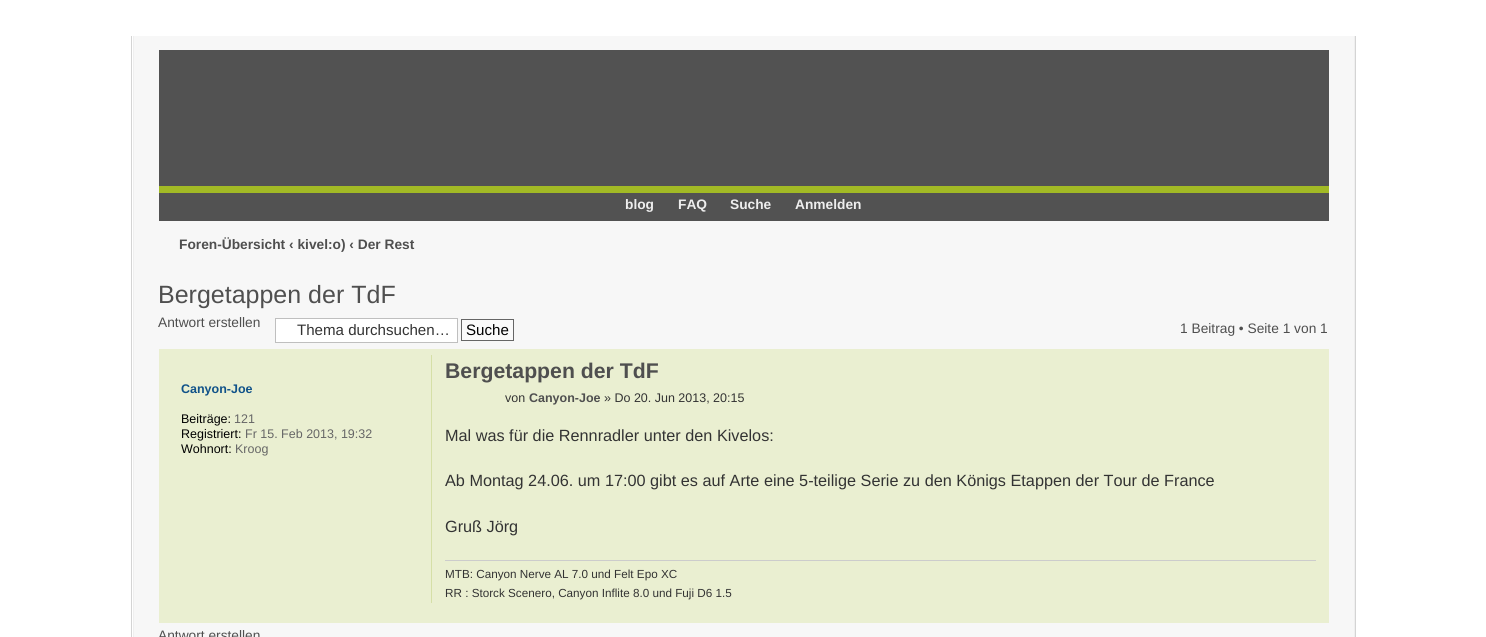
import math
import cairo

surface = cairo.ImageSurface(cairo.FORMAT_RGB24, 1486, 637)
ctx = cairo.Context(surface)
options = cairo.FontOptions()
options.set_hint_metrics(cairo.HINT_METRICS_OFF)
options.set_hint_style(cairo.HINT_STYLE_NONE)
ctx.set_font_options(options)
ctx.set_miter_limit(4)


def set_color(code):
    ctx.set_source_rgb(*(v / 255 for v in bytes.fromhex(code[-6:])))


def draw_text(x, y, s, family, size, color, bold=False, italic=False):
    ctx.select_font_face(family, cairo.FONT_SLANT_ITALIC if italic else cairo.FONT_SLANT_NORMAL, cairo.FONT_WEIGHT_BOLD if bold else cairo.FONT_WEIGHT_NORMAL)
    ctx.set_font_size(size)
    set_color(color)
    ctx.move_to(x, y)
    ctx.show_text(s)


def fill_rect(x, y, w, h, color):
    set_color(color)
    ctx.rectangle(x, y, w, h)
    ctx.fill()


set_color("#ffffff")
ctx.paint()
fill_rect(1355, 36, 1, 601, "#d4d4d4")
fill_rect(131, 36, 1, 601, "#d4d4d4")
fill_rect(134, 36, 1220, 601, "#f7f7f7")
fill_rect(1354, 36, 1, 601, "#efefef")
fill_rect(133, 36, 1, 601, "#efefef")
fill_rect(159, 50, 1170, 136, "#525252")
fill_rect(159, 186, 1170, 7, "#a2ba25")
fill_rect(159, 193, 1170, 28, "#525252")
draw_text(625, 209, "blog", "Liberation Sans", 13.75, "#eeeeee", bold=True)
draw_text(678, 209, "FAQ", "Liberation Sans", 13.75, "#eeeeee", bold=True)
draw_text(730, 209, "Suche", "Liberation Sans", 13.75, "#eeeeee", bold=True)
draw_text(795, 209, "Anmelden", "Liberation Sans", 13.75, "#eeeeee", bold=True)
draw_text(179, 249, "Foren-Übersicht ‹ kivel:o) ‹ Der Rest", "Liberation Sans", 13.75, "#4f4f4f", bold=True)
draw_text(158, 303, "Bergetappen der TdF", "Liberation Sans", 25, "#4f4f4f")
draw_text(158, 327, "Antwort erstellen", "Liberation Sans", 13.75, "#4f4f4f")
set_color("#ffffff")
ctx.rectangle(275.5, 318.5, 182, 24)
ctx.fill_preserve()
set_color("#bfbfbf")
ctx.set_line_width(1)
ctx.stroke()
draw_text(297, 335, "Thema durchsuchen…", "Liberation Sans", 15.1, "#333333")
set_color("#fafafa")
ctx.rectangle(461.5, 319.5, 52, 21)
ctx.fill_preserve()
set_color("#666666")
ctx.stroke()
draw_text(466, 335, "Suche", "Liberation Sans", 15.1, "#000000")
draw_text(1180, 333, "1 Beitrag • Seite 1 von 1", "Liberation Sans", 13.75, "#4f4f4f")
fill_rect(159, 349, 1170, 274, "#eaefd1")
draw_text(181, 393, "Canyon-Joe", "Liberation Sans", 12.5, "#105289", bold=True)
draw_text(181, 423, "Beiträge:", "Liberation Sans", 12.5, "#000000")
draw_text(234, 423, "121", "Liberation Sans", 12.5, "#666666")
draw_text(181, 438, "Registriert:", "Liberation Sans", 12.5, "#000000")
draw_text(245, 438, "Fr 15. Feb 2013, 19:32", "Liberation Sans", 12.5, "#666666")
draw_text(181, 453, "Wohnort:", "Liberation Sans", 12.5, "#000000")
draw_text(235, 453, "Kroog", "Liberation Sans", 12.5, "#666666")
fill_rect(431, 355, 1, 248, "#d5dfa7")
draw_text(445, 378, "Bergetappen der TdF", "Liberation Sans", 21.25, "#4f4f4f", bold=True)
draw_text(505, 402, "von", "Liberation Sans", 12.5, "#333333")
draw_text(529, 402, "Canyon-Joe", "Liberation Sans", 12.5, "#4f4f4f", bold=True)
draw_text(604, 402, "» Do 20. Jun 2013, 20:15", "Liberation Sans", 12.5, "#333333")
draw_text(445, 441, "Mal was für die Rennradler unter den Kivelos:", "Liberation Sans", 16.25, "#333333")
draw_text(445, 486, "Ab Montag 24.06. um 17:00 gibt es auf Arte eine 5-teilige Serie zu den Königs Etappen der Tour de France", "Liberation Sans", 16.25, "#333333")
draw_text(445, 532, "Gruß Jörg", "Liberation Sans", 16.25, "#333333")
fill_rect(445, 560, 871, 1, "#cccccc")
draw_text(445, 578, "MTB: Canyon Nerve AL 7.0 und Felt Epo XC", "Liberation Sans", 11.7, "#333333")
draw_text(445, 597, "RR : Storck Scenero, Canyon Inflite 8.0 und Fuji D6 1.5", "Liberation Sans", 11.7, "#333333")
draw_text(158, 640, "Antwort erstellen", "Liberation Sans", 13.75, "#4f4f4f")
surface.write_to_png("output.png")
